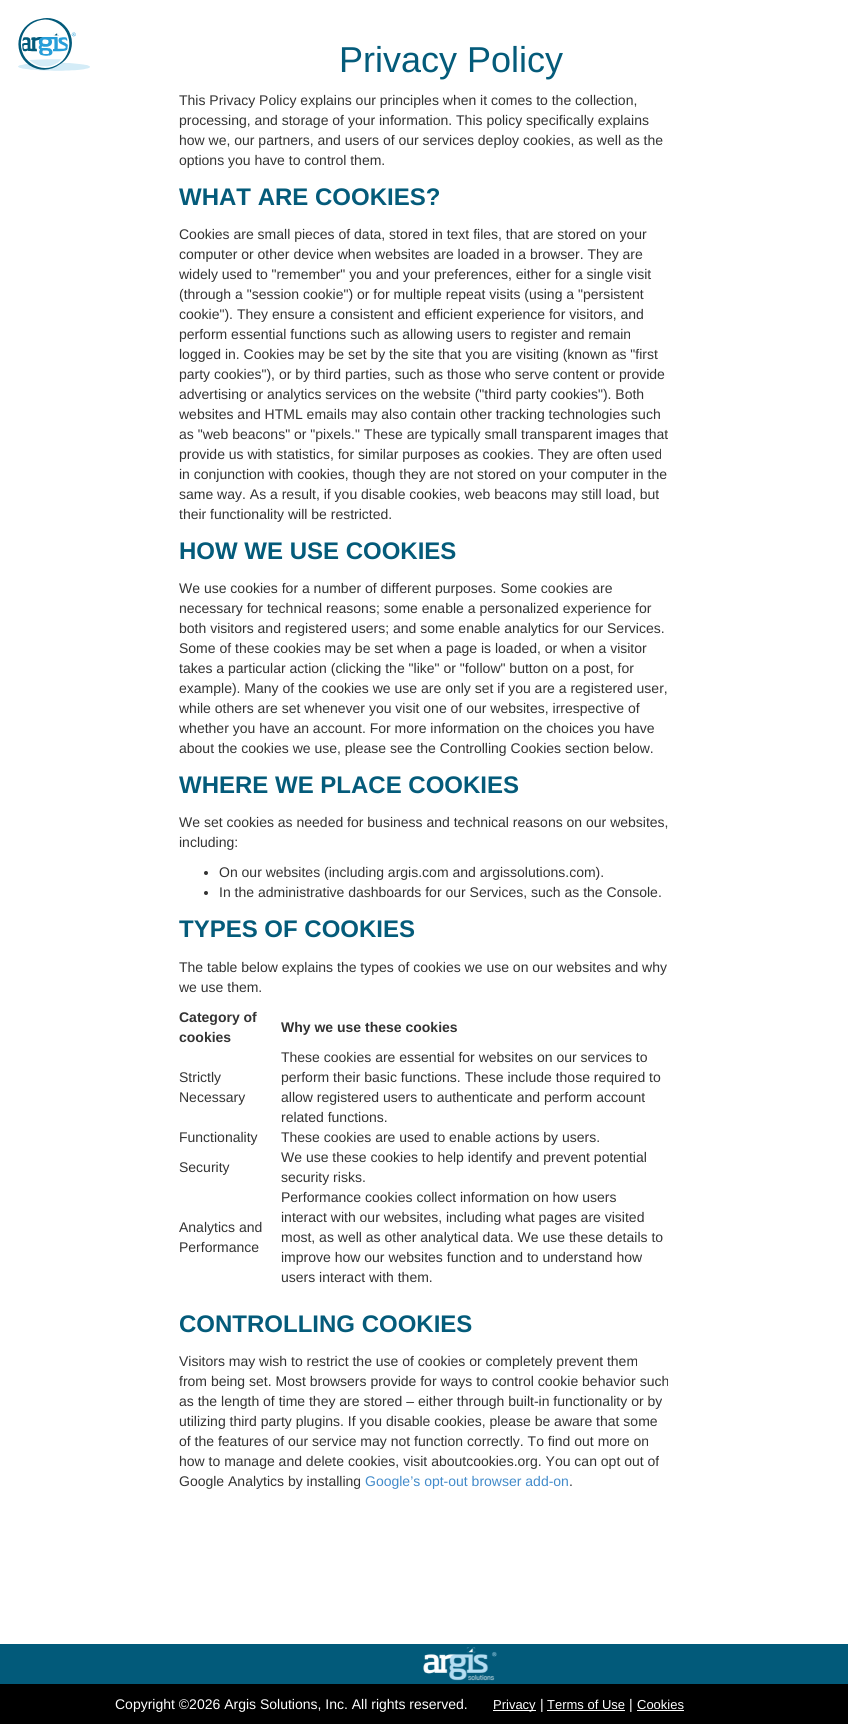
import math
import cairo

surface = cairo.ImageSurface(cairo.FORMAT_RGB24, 848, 1724)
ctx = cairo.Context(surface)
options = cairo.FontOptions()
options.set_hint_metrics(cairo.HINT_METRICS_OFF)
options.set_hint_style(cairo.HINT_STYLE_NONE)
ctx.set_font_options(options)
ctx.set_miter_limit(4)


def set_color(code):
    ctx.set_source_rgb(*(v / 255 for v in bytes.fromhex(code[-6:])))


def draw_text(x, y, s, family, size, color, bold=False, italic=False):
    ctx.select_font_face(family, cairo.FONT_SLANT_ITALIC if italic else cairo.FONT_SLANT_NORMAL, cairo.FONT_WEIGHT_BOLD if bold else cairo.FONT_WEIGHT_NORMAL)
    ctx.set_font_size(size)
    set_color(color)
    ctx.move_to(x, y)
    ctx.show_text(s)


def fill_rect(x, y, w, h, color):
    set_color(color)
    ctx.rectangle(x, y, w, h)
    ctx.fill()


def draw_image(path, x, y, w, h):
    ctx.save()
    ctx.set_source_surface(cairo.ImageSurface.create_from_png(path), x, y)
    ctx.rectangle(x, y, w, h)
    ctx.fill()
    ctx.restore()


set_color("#ffffff")
ctx.paint()
draw_image("assets/img1.png", 18, 18, 72, 53)
draw_text(339, 72, "Privacy Policy", "Liberation Sans", 36, "#045b7a")
draw_text(179, 105, "This Privacy Policy explains our principles when it comes to the collection,", "Liberation Sans", 14, "#333333")
draw_text(179, 125, "processing, and storage of your information. This policy specifically explains", "Liberation Sans", 14, "#333333")
draw_text(179, 145, "how we, our partners, and users of our services deploy cookies, as well as the", "Liberation Sans", 14, "#333333")
draw_text(179, 165, "options you have to control them.", "Liberation Sans", 14, "#333333")
draw_text(179, 205, "WHAT ARE COOKIES?", "Liberation Sans", 24, "#045b7a", bold=True)
draw_text(179, 239, "Cookies are small pieces of data, stored in text files, that are stored on your", "Liberation Sans", 14, "#333333")
draw_text(179, 259, "computer or other device when websites are loaded in a browser. They are", "Liberation Sans", 14, "#333333")
draw_text(179, 279, "widely used to \"remember\" you and your preferences, either for a single visit", "Liberation Sans", 14, "#333333")
draw_text(179, 299, "(through a \"session cookie\") or for multiple repeat visits (using a \"persistent", "Liberation Sans", 14, "#333333")
draw_text(179, 319, "cookie\"). They ensure a consistent and efficient experience for visitors, and", "Liberation Sans", 14, "#333333")
draw_text(179, 339, "perform essential functions such as allowing users to register and remain", "Liberation Sans", 14, "#333333")
draw_text(179, 359, "logged in. Cookies may be set by the site that you are visiting (known as \"first", "Liberation Sans", 14, "#333333")
draw_text(179, 379, "party cookies\"), or by third parties, such as those who serve content or provide", "Liberation Sans", 14, "#333333")
draw_text(179, 399, "advertising or analytics services on the website (\"third party cookies\"). Both", "Liberation Sans", 14, "#333333")
draw_text(179, 419, "websites and HTML emails may also contain other tracking technologies such", "Liberation Sans", 14, "#333333")
draw_text(179, 439, "as \"web beacons\" or \"pixels.\" These are typically small transparent images that", "Liberation Sans", 14, "#333333")
draw_text(179, 459, "provide us with statistics, for similar purposes as cookies. They are often used", "Liberation Sans", 14, "#333333")
draw_text(179, 479, "in conjunction with cookies, though they are not stored on your computer in the", "Liberation Sans", 14, "#333333")
draw_text(179, 499, "same way. As a result, if you disable cookies, web beacons may still load, but", "Liberation Sans", 14, "#333333")
draw_text(179, 519, "their functionality will be restricted.", "Liberation Sans", 14, "#333333")
draw_text(179, 559, "HOW WE USE COOKIES", "Liberation Sans", 24, "#045b7a", bold=True)
draw_text(179, 593, "We use cookies for a number of different purposes. Some cookies are", "Liberation Sans", 14, "#333333")
draw_text(179, 613, "necessary for technical reasons; some enable a personalized experience for", "Liberation Sans", 14, "#333333")
draw_text(179, 633, "both visitors and registered users; and some enable analytics for our Services.", "Liberation Sans", 14, "#333333")
draw_text(179, 653, "Some of these cookies may be set when a page is loaded, or when a visitor", "Liberation Sans", 14, "#333333")
draw_text(179, 673, "takes a particular action (clicking the \"like\" or \"follow\" button on a post, for", "Liberation Sans", 14, "#333333")
draw_text(179, 693, "example). Many of the cookies we use are only set if you are a registered user,", "Liberation Sans", 14, "#333333")
draw_text(179, 713, "while others are set whenever you visit one of our websites, irrespective of", "Liberation Sans", 14, "#333333")
draw_text(179, 733, "whether you have an account. For more information on the choices you have", "Liberation Sans", 14, "#333333")
draw_text(179, 753, "about the cookies we use, please see the Controlling Cookies section below.", "Liberation Sans", 14, "#333333")
draw_text(179, 793, "WHERE WE PLACE COOKIES", "Liberation Sans", 24, "#045b7a", bold=True)
draw_text(179, 827, "We set cookies as needed for business and technical reasons on our websites,", "Liberation Sans", 14, "#333333")
draw_text(179, 847, "including:", "Liberation Sans", 14, "#333333")
ctx.new_path()
ctx.arc(206, 873, 2, 0, 2 * math.pi)
ctx.fill()
draw_text(219, 877, "On our websites (including argis.com and argissolutions.com).", "Liberation Sans", 14, "#333333")
ctx.new_path()
ctx.arc(206, 893, 2, 0, 2 * math.pi)
ctx.fill()
draw_text(219, 897, "In the administrative dashboards for our Services, such as the Console.", "Liberation Sans", 14, "#333333")
draw_text(179, 937, "TYPES OF COOKIES", "Liberation Sans", 24, "#045b7a", bold=True)
draw_text(179, 972, "The table below explains the types of cookies we use on our websites and why", "Liberation Sans", 14, "#333333")
draw_text(179, 992, "we use them.", "Liberation Sans", 14, "#333333")
draw_text(179, 1022, "Category of", "Liberation Sans", 14, "#333333", bold=True)
draw_text(179, 1042, "cookies", "Liberation Sans", 14, "#333333", bold=True)
draw_text(281, 1032, "Why we use these cookies", "Liberation Sans", 14, "#333333", bold=True)
draw_text(179, 1082, "Strictly", "Liberation Sans", 14, "#333333")
draw_text(179, 1102, "Necessary", "Liberation Sans", 14, "#333333")
draw_text(281, 1062, "These cookies are essential for websites on our services to", "Liberation Sans", 14, "#333333")
draw_text(281, 1082, "perform their basic functions. These include those required to", "Liberation Sans", 14, "#333333")
draw_text(281, 1102, "allow registered users to authenticate and perform account", "Liberation Sans", 14, "#333333")
draw_text(281, 1122, "related functions.", "Liberation Sans", 14, "#333333")
draw_text(179, 1142, "Functionality", "Liberation Sans", 14, "#333333")
draw_text(281, 1142, "These cookies are used to enable actions by users.", "Liberation Sans", 14, "#333333")
draw_text(179, 1172, "Security", "Liberation Sans", 14, "#333333")
draw_text(281, 1162, "We use these cookies to help identify and prevent potential", "Liberation Sans", 14, "#333333")
draw_text(281, 1182, "security risks.", "Liberation Sans", 14, "#333333")
draw_text(179, 1232, "Analytics and", "Liberation Sans", 14, "#333333")
draw_text(179, 1252, "Performance", "Liberation Sans", 14, "#333333")
draw_text(281, 1202, "Performance cookies collect information on how users", "Liberation Sans", 14, "#333333")
draw_text(281, 1222, "interact with our websites, including what pages are visited", "Liberation Sans", 14, "#333333")
draw_text(281, 1242, "most, as well as other analytical data. We use these details to", "Liberation Sans", 14, "#333333")
draw_text(281, 1262, "improve how our websites function and to understand how", "Liberation Sans", 14, "#333333")
draw_text(281, 1282, "users interact with them.", "Liberation Sans", 14, "#333333")
draw_text(179, 1332, "CONTROLLING COOKIES", "Liberation Sans", 24, "#045b7a", bold=True)
draw_text(179, 1366, "Visitors may wish to restrict the use of cookies or completely prevent them", "Liberation Sans", 14, "#333333")
draw_text(179, 1386, "from being set. Most browsers provide for ways to control cookie behavior such", "Liberation Sans", 14, "#333333")
draw_text(179, 1406, "as the length of time they are stored – either through built-in functionality or by", "Liberation Sans", 14, "#333333")
draw_text(179, 1426, "utilizing third party plugins. If you disable cookies, please be aware that some", "Liberation Sans", 14, "#333333")
draw_text(179, 1446, "of the features of our service may not function correctly. To find out more on", "Liberation Sans", 14, "#333333")
draw_text(179, 1466, "how to manage and delete cookies, visit aboutcookies.org. You can opt out of", "Liberation Sans", 14, "#333333")
draw_text(179, 1486, "Google Analytics by installing", "Liberation Sans", 14, "#333333")
draw_text(365, 1486, "Google’s opt-out browser add-on", "Liberation Sans", 14, "#428bca")
draw_text(569, 1486, ".", "Liberation Sans", 14, "#333333")
fill_rect(0, 1644, 848, 40, "#025a7a")
draw_image("assets/img2.png", 423, 1647, 74, 34)
fill_rect(0, 1684, 848, 40, "#000000")
draw_text(115, 1709, "Copyright ©2026 Argis Solutions, Inc. All rights reserved.", "Liberation Sans", 14, "#ffffff")
fill_rect(493, 1710, 43, 1, "#ffffff")
draw_text(493, 1709, "Privacy", "Liberation Sans", 13, "#ffffff")
draw_text(540, 1709, "|", "Liberation Sans", 14, "#ffffff")
draw_text(547, 1709, "Terms of Use", "Liberation Sans", 13, "#ffffff")
fill_rect(547, 1710, 78, 1, "#ffffff")
draw_text(629, 1709, "|", "Liberation Sans", 14, "#ffffff")
draw_text(637, 1709, "Cookies", "Liberation Sans", 13, "#ffffff")
fill_rect(637, 1710, 47, 1, "#ffffff")
surface.write_to_png("output.png")
